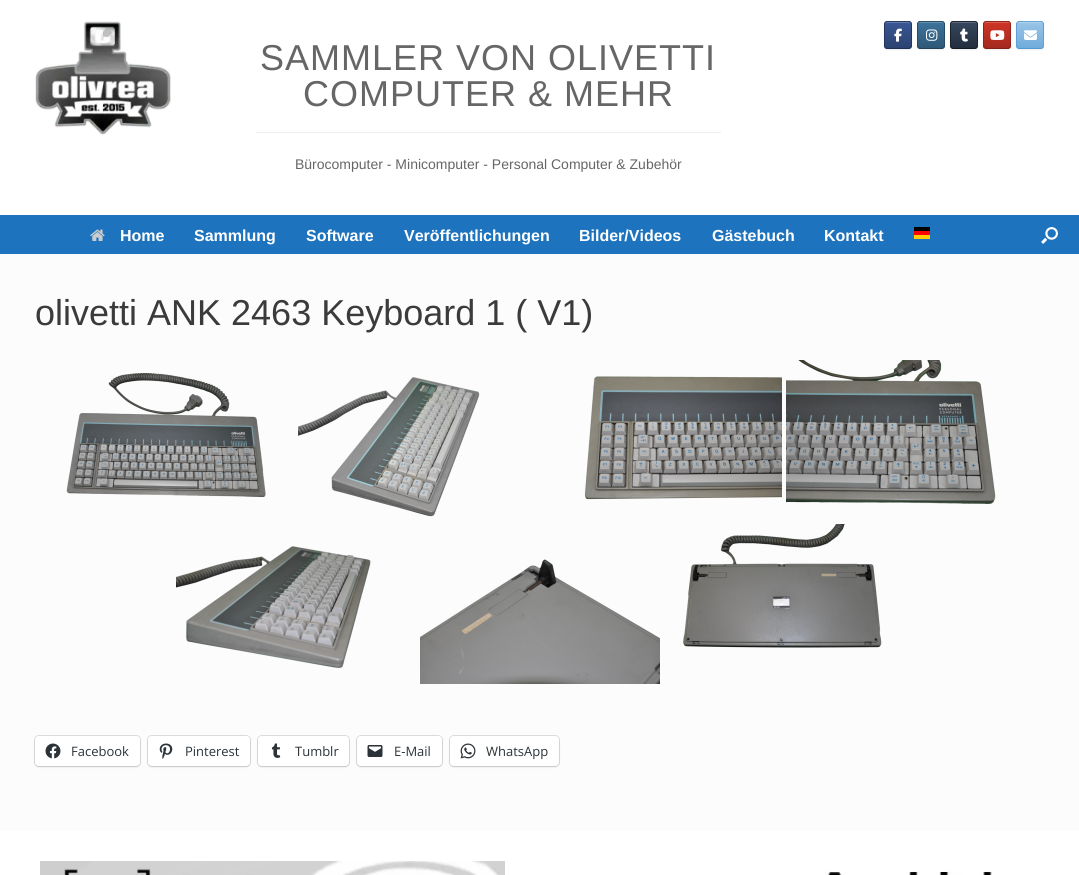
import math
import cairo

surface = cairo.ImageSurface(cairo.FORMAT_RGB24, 1079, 875)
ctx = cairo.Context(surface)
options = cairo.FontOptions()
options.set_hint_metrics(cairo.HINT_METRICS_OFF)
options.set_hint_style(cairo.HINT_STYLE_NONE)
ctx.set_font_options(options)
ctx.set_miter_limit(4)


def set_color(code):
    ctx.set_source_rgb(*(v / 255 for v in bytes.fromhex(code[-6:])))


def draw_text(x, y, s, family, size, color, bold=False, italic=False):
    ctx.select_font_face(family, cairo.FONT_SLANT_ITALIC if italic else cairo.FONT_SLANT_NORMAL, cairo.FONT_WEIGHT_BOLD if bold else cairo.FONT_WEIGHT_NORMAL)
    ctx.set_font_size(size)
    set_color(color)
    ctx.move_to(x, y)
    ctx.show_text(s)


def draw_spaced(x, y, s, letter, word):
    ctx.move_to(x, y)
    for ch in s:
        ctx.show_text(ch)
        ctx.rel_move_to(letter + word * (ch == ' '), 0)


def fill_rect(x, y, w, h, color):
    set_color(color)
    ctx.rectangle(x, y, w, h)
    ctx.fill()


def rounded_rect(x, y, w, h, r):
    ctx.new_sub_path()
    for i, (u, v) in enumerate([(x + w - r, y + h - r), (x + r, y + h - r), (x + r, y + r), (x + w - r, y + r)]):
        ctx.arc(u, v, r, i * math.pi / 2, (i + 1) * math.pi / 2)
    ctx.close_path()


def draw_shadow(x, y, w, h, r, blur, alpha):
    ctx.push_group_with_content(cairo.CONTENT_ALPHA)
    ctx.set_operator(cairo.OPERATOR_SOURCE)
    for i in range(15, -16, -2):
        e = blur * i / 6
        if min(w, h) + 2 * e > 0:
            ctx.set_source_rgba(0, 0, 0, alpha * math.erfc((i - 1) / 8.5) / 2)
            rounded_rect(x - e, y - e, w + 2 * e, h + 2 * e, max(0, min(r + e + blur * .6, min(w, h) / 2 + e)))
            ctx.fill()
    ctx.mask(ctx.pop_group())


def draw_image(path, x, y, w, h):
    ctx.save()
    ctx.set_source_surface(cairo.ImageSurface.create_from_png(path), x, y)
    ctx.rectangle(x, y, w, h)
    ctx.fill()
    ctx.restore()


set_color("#ffffff")
ctx.paint()
draw_image("assets/img1.png", 35, 21, 136, 114)
set_color("#000000")
draw_shadow(884, 22, 28, 28, 3, 1, 0.07)
ctx.save()
rounded_rect(884, 21, 28, 28, 3)
ctx.clip()
gradient = cairo.LinearGradient(885, 22, 885, -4)
gradient.add_color_stop_rgba(0, 0.173, 0.259, 0.439, 1)
gradient.add_color_stop_rgba(1, 0.227, 0.341, 0.584, 1)
ctx.set_source(gradient)
ctx.rectangle(884, 21, 28, 1)
ctx.fill()
gradient = cairo.LinearGradient(885, 48, 885, 22)
gradient.add_color_stop_rgba(0, 0.173, 0.259, 0.439, 1)
gradient.add_color_stop_rgba(1, 0.227, 0.341, 0.584, 1)
ctx.set_source(gradient)
ctx.rectangle(884, 22, 28, 26)
ctx.fill()
gradient = cairo.LinearGradient(885, 74, 885, 48)
gradient.add_color_stop_rgba(0, 0.173, 0.259, 0.439, 1)
gradient.add_color_stop_rgba(1, 0.227, 0.341, 0.584, 1)
ctx.set_source(gradient)
ctx.rectangle(884, 48, 28, 1)
ctx.fill()
ctx.restore()
set_color("#6179a9")
ctx.new_path()
ctx.move_to(887, 23)
ctx.line_to(909, 23)
ctx.curve_to(910, 23, 911, 24, 911, 25)
ctx.curve_to(911, 21, 909, 22, 905.5, 22)
ctx.line_to(890.5, 22)
ctx.curve_to(887, 22, 885, 21, 885, 25)
ctx.curve_to(885, 24, 886, 23, 887, 23)
ctx.close_path()
ctx.fill()
ctx.new_path()
ctx.move_to(885.5, 22.5)
ctx.curve_to(886, 22, 886.5, 21.5, 887, 21.5)
ctx.line_to(909, 21.5)
ctx.curve_to(909.5, 21.5, 910, 22, 910.5, 22.5)
set_color("#273b65")
ctx.set_line_width(1)
ctx.stroke()
ctx.new_path()
ctx.move_to(910.5, 22.5)
ctx.curve_to(911, 23, 911.5, 23.5, 911.5, 24)
ctx.line_to(911.5, 46)
ctx.curve_to(911.5, 46.5, 911, 47, 910.5, 47.5)
set_color("#25375e")
ctx.stroke()
ctx.new_path()
ctx.move_to(910.5, 47.5)
ctx.curve_to(910, 48, 909.5, 48.5, 909, 48.5)
ctx.line_to(887, 48.5)
ctx.curve_to(886.5, 48.5, 886, 48, 885.5, 47.5)
set_color("#203053")
ctx.stroke()
ctx.new_path()
ctx.move_to(885.5, 47.5)
ctx.curve_to(885, 47, 884.5, 46.5, 884.5, 46)
ctx.line_to(884.5, 24)
ctx.curve_to(884.5, 23.5, 885, 23, 885.5, 22.5)
set_color("#25375e")
ctx.stroke()
draw_image("assets/img2.png", 894, 28, 8, 14)
set_color("#000000")
draw_shadow(917, 22, 28, 28, 3, 1, 0.07)
ctx.save()
rounded_rect(917, 21, 28, 28, 3)
ctx.clip()
gradient = cairo.LinearGradient(918, 22, 918, -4)
gradient.add_color_stop_rgba(0, 0.184, 0.345, 0.467, 1)
gradient.add_color_stop_rgba(1, 0.239, 0.451, 0.612, 1)
ctx.set_source(gradient)
ctx.rectangle(917, 21, 28, 1)
ctx.fill()
gradient = cairo.LinearGradient(918, 48, 918, 22)
gradient.add_color_stop_rgba(0, 0.184, 0.345, 0.467, 1)
gradient.add_color_stop_rgba(1, 0.239, 0.451, 0.612, 1)
ctx.set_source(gradient)
ctx.rectangle(917, 22, 28, 26)
ctx.fill()
gradient = cairo.LinearGradient(918, 74, 918, 48)
gradient.add_color_stop_rgba(0, 0.184, 0.345, 0.467, 1)
gradient.add_color_stop_rgba(1, 0.239, 0.451, 0.612, 1)
ctx.set_source(gradient)
ctx.rectangle(917, 48, 28, 1)
ctx.fill()
ctx.restore()
set_color("#648eaf")
ctx.new_path()
ctx.move_to(920, 23)
ctx.line_to(942, 23)
ctx.curve_to(943, 23, 944, 24, 944, 25)
ctx.curve_to(944, 21, 942, 22, 938.5, 22)
ctx.line_to(923.5, 22)
ctx.curve_to(920, 22, 918, 21, 918, 25)
ctx.curve_to(918, 24, 919, 23, 920, 23)
ctx.close_path()
ctx.fill()
ctx.new_path()
ctx.move_to(918.5, 22.5)
ctx.curve_to(919, 22, 919.5, 21.5, 920, 21.5)
ctx.line_to(942, 21.5)
ctx.curve_to(942.5, 21.5, 943, 22, 943.5, 22.5)
set_color("#2a506c")
ctx.stroke()
ctx.new_path()
ctx.move_to(943.5, 22.5)
ctx.curve_to(944, 23, 944.5, 23.5, 944.5, 24)
ctx.line_to(944.5, 46)
ctx.curve_to(944.5, 46.5, 944, 47, 943.5, 47.5)
set_color("#274a65")
ctx.stroke()
ctx.new_path()
ctx.move_to(943.5, 47.5)
ctx.curve_to(943, 48, 942.5, 48.5, 942, 48.5)
ctx.line_to(920, 48.5)
ctx.curve_to(919.5, 48.5, 919, 48, 918.5, 47.5)
set_color("#23425a")
ctx.stroke()
ctx.new_path()
ctx.move_to(918.5, 47.5)
ctx.curve_to(918, 47, 917.5, 46.5, 917.5, 46)
ctx.line_to(917.5, 24)
ctx.curve_to(917.5, 23.5, 918, 23, 918.5, 22.5)
set_color("#274a65")
ctx.stroke()
draw_image("assets/img3.png", 926, 29, 12, 12)
set_color("#000000")
draw_shadow(950, 22, 28, 28, 3, 1, 0.07)
ctx.save()
rounded_rect(950, 21, 28, 28, 3)
ctx.clip()
gradient = cairo.LinearGradient(951, 22, 951, -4)
gradient.add_color_stop_rgba(0, 0.137, 0.18, 0.239, 1)
gradient.add_color_stop_rgba(1, 0.212, 0.275, 0.365, 1)
ctx.set_source(gradient)
ctx.rectangle(950, 21, 28, 1)
ctx.fill()
gradient = cairo.LinearGradient(951, 48, 951, 22)
gradient.add_color_stop_rgba(0, 0.137, 0.18, 0.239, 1)
gradient.add_color_stop_rgba(1, 0.212, 0.275, 0.365, 1)
ctx.set_source(gradient)
ctx.rectangle(950, 22, 28, 26)
ctx.fill()
gradient = cairo.LinearGradient(951, 74, 951, 48)
gradient.add_color_stop_rgba(0, 0.137, 0.18, 0.239, 1)
gradient.add_color_stop_rgba(1, 0.212, 0.275, 0.365, 1)
ctx.set_source(gradient)
ctx.rectangle(950, 48, 28, 1)
ctx.fill()
ctx.restore()
set_color("#5e6b7d")
ctx.new_path()
ctx.move_to(953, 23)
ctx.line_to(975, 23)
ctx.curve_to(976, 23, 977, 24, 977, 25)
ctx.curve_to(977, 21, 975, 22, 971.5, 22)
ctx.line_to(956.5, 22)
ctx.curve_to(953, 22, 951, 21, 951, 25)
ctx.curve_to(951, 24, 952, 23, 953, 23)
ctx.close_path()
ctx.fill()
ctx.new_path()
ctx.move_to(951.5, 22.5)
ctx.curve_to(952, 22, 952.5, 21.5, 953, 21.5)
ctx.line_to(975, 21.5)
ctx.curve_to(975.5, 21.5, 976, 22, 976.5, 22.5)
set_color("#1e2633")
ctx.stroke()
ctx.new_path()
ctx.move_to(976.5, 22.5)
ctx.curve_to(977, 23, 977.5, 23.5, 977.5, 24)
ctx.line_to(977.5, 46)
ctx.curve_to(977.5, 46.5, 977, 47, 976.5, 47.5)
set_color("#1a222d")
ctx.stroke()
ctx.new_path()
ctx.move_to(976.5, 47.5)
ctx.curve_to(976, 48, 975.5, 48.5, 975, 48.5)
ctx.line_to(953, 48.5)
ctx.curve_to(952.5, 48.5, 952, 48, 951.5, 47.5)
set_color("#141a23")
ctx.stroke()
ctx.new_path()
ctx.move_to(951.5, 47.5)
ctx.curve_to(951, 47, 950.5, 46.5, 950.5, 46)
ctx.line_to(950.5, 24)
ctx.curve_to(950.5, 23.5, 951, 23, 951.5, 22.5)
set_color("#1a222d")
ctx.stroke()
draw_image("assets/img4.png", 960, 28, 8, 14)
set_color("#000000")
draw_shadow(983, 22, 28, 28, 3, 1, 0.07)
ctx.save()
rounded_rect(983, 21, 28, 28, 3)
ctx.clip()
gradient = cairo.LinearGradient(984, 22, 984, -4)
gradient.add_color_stop_rgba(0, 0.643, 0.161, 0.122, 1)
gradient.add_color_stop_rgba(1, 0.812, 0.204, 0.153, 1)
ctx.set_source(gradient)
ctx.rectangle(983, 21, 28, 1)
ctx.fill()
gradient = cairo.LinearGradient(984, 48, 984, 22)
gradient.add_color_stop_rgba(0, 0.643, 0.161, 0.122, 1)
gradient.add_color_stop_rgba(1, 0.812, 0.204, 0.153, 1)
ctx.set_source(gradient)
ctx.rectangle(983, 22, 28, 26)
ctx.fill()
gradient = cairo.LinearGradient(984, 74, 984, 48)
gradient.add_color_stop_rgba(0, 0.643, 0.161, 0.122, 1)
gradient.add_color_stop_rgba(1, 0.812, 0.204, 0.153, 1)
ctx.set_source(gradient)
ctx.rectangle(983, 48, 28, 1)
ctx.fill()
ctx.restore()
set_color("#d85d52")
ctx.new_path()
ctx.move_to(986, 23)
ctx.line_to(1008, 23)
ctx.curve_to(1009, 23, 1010, 24, 1010, 25)
ctx.curve_to(1010, 21, 1008, 22, 1004.5, 22)
ctx.line_to(989.5, 22)
ctx.curve_to(986, 22, 984, 21, 984, 25)
ctx.curve_to(984, 24, 985, 23, 986, 23)
ctx.close_path()
ctx.fill()
ctx.new_path()
ctx.move_to(984.5, 22.5)
ctx.curve_to(985, 22, 985.5, 21.5, 986, 21.5)
ctx.line_to(1008, 21.5)
ctx.curve_to(1008.5, 21.5, 1009, 22, 1009.5, 22.5)
set_color("#97261c")
ctx.stroke()
ctx.new_path()
ctx.move_to(1009.5, 22.5)
ctx.curve_to(1010, 23, 1010.5, 23.5, 1010.5, 24)
ctx.line_to(1010.5, 46)
ctx.curve_to(1010.5, 46.5, 1010, 47, 1009.5, 47.5)
set_color("#8f241b")
ctx.stroke()
ctx.new_path()
ctx.move_to(1009.5, 47.5)
ctx.curve_to(1009, 48, 1008.5, 48.5, 1008, 48.5)
ctx.line_to(986, 48.5)
ctx.curve_to(985.5, 48.5, 985, 48, 984.5, 47.5)
set_color("#822118")
ctx.stroke()
ctx.new_path()
ctx.move_to(984.5, 47.5)
ctx.curve_to(984, 47, 983.5, 46.5, 983.5, 46)
ctx.line_to(983.5, 24)
ctx.curve_to(983.5, 23.5, 984, 23, 984.5, 22.5)
set_color("#8f241b")
ctx.stroke()
draw_image("assets/img5.png", 990, 30, 15, 10)
set_color("#000000")
draw_shadow(1016, 22, 28, 28, 3, 1, 0.07)
ctx.save()
rounded_rect(1016, 21, 28, 28, 3)
ctx.clip()
gradient = cairo.LinearGradient(1017, 22, 1017, -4)
gradient.add_color_stop_rgba(0, 0.439, 0.675, 0.863, 1)
gradient.add_color_stop_rgba(1, 0.6, 0.769, 0.902, 1)
ctx.set_source(gradient)
ctx.rectangle(1016, 21, 28, 1)
ctx.fill()
gradient = cairo.LinearGradient(1017, 48, 1017, 22)
gradient.add_color_stop_rgba(0, 0.439, 0.675, 0.863, 1)
gradient.add_color_stop_rgba(1, 0.6, 0.769, 0.902, 1)
ctx.set_source(gradient)
ctx.rectangle(1016, 22, 28, 26)
ctx.fill()
gradient = cairo.LinearGradient(1017, 74, 1017, 48)
gradient.add_color_stop_rgba(0, 0.439, 0.675, 0.863, 1)
gradient.add_color_stop_rgba(1, 0.6, 0.769, 0.902, 1)
ctx.set_source(gradient)
ctx.rectangle(1016, 48, 28, 1)
ctx.fill()
ctx.restore()
set_color("#add0eb")
ctx.new_path()
ctx.move_to(1019, 23)
ctx.line_to(1041, 23)
ctx.curve_to(1042, 23, 1043, 24, 1043, 25)
ctx.curve_to(1043, 21, 1041, 22, 1037.5, 22)
ctx.line_to(1022.5, 22)
ctx.curve_to(1019, 22, 1017, 21, 1017, 25)
ctx.curve_to(1017, 24, 1018, 23, 1019, 23)
ctx.close_path()
ctx.fill()
ctx.new_path()
ctx.move_to(1017.5, 22.5)
ctx.curve_to(1018, 22, 1018.5, 21.5, 1019, 21.5)
ctx.line_to(1041, 21.5)
ctx.curve_to(1041.5, 21.5, 1042, 22, 1042.5, 22.5)
set_color("#64a5d9")
ctx.stroke()
ctx.new_path()
ctx.move_to(1042.5, 22.5)
ctx.curve_to(1043, 23, 1043.5, 23.5, 1043.5, 24)
ctx.line_to(1043.5, 46)
ctx.curve_to(1043.5, 46.5, 1043, 47, 1042.5, 47.5)
set_color("#5ca0d7")
ctx.stroke()
ctx.new_path()
ctx.move_to(1042.5, 47.5)
ctx.curve_to(1042, 48, 1041.5, 48.5, 1041, 48.5)
ctx.line_to(1019, 48.5)
ctx.curve_to(1018.5, 48.5, 1018, 48, 1017.5, 47.5)
set_color("#4f99d4")
ctx.stroke()
ctx.new_path()
ctx.move_to(1017.5, 47.5)
ctx.curve_to(1017, 47, 1016.5, 46.5, 1016.5, 46)
ctx.line_to(1016.5, 24)
ctx.curve_to(1016.5, 23.5, 1017, 23, 1017.5, 22.5)
set_color("#5ca0d7")
ctx.stroke()
draw_image("assets/img6.png", 1024, 30, 13, 10)
ctx.select_font_face("Liberation Sans")
ctx.set_font_size(36)
set_color("#666666")
draw_spaced(260, 70, "SAMMLER VON OLIVETTI", 1, 0)
draw_spaced(303, 106, "COMPUTER & MEHR", 1, 0)
fill_rect(256, 132, 465, 1, "#eeeeee")
draw_text(295, 169, "Bürocomputer - Minicomputer - Personal Computer & Zubehör", "Liberation Sans", 14, "#666666")
fill_rect(0, 215, 1079, 39, "#1e73be")
draw_image("assets/img7.png", 90, 229, 15, 12)
draw_text(120, 241, "Home", "Liberation Sans", 16, "#ffffff", bold=True)
draw_text(194, 241, "Sammlung", "Liberation Sans", 16, "#ffffff", bold=True)
draw_text(306, 241, "Software", "Liberation Sans", 16, "#ffffff", bold=True)
draw_text(404, 241, "Veröffentlichungen", "Liberation Sans", 16, "#ffffff", bold=True)
draw_text(579, 241, "Bilder/Videos", "Liberation Sans", 16, "#ffffff", bold=True)
draw_text(712, 241, "Gästebuch", "Liberation Sans", 16, "#ffffff", bold=True)
draw_text(824, 241, "Kontakt", "Liberation Sans", 16, "#ffffff", bold=True)
fill_rect(914, 227, 16, 4, "#000000")
fill_rect(914, 231, 16, 4, "#ff0000")
fill_rect(914, 235, 16, 4, "#ffcc00")
draw_image("assets/img8.png", 1041, 227, 17, 17)
fill_rect(0, 254, 1079, 577, "#fcfcfc")
draw_text(35, 325, "olivetti ANK 2463 Keyboard 1 ( V1)", "Liberation Sans", 36, "#3b3b3b")
draw_image("assets/img9.png", 66, 372, 200, 125)
draw_image("assets/img10.png", 298, 377, 182, 140)
draw_image("assets/img11.png", 584, 376, 198, 124)
draw_image("assets/img12.png", 786, 360, 210, 144)
draw_image("assets/img13.png", 176, 546, 195, 122)
draw_image("assets/img14.png", 420, 559, 240, 125)
draw_image("assets/img15.png", 683, 524, 199, 124)
rounded_rect(34.5, 735.5, 106, 31, 4.5)
set_color("#dedede")
ctx.stroke()
set_color("#000000")
draw_shadow(35, 737, 105, 30, 4, 1, 0.12)
set_color("#ffffff")
rounded_rect(35, 736, 105, 30, 4)
ctx.fill()
draw_image("assets/img16.png", 45, 743, 16, 16)
draw_text(71, 756, "Facebook", "Open Sans", 13, "#2c3338")
rounded_rect(147.5, 735.5, 103, 31, 4.5)
set_color("#dedede")
ctx.stroke()
set_color("#000000")
draw_shadow(148, 737, 102, 30, 4, 1, 0.12)
set_color("#ffffff")
rounded_rect(148, 736, 102, 30, 4)
ctx.fill()
draw_image("assets/img17.png", 159, 743, 14, 16)
draw_text(185, 756, "Pinterest", "Open Sans", 13, "#2c3338")
rounded_rect(257.5, 735.5, 92, 31, 4.5)
set_color("#dedede")
ctx.stroke()
set_color("#000000")
draw_shadow(258, 737, 91, 30, 4, 1, 0.12)
set_color("#ffffff")
rounded_rect(258, 736, 91, 30, 4)
ctx.fill()
draw_image("assets/img18.png", 271, 743, 10, 15)
draw_text(295, 756, "Tumblr", "Open Sans", 13, "#2c3338")
rounded_rect(356.5, 735.5, 86, 31, 4.5)
set_color("#dedede")
ctx.stroke()
set_color("#000000")
draw_shadow(357, 737, 85, 30, 4, 1, 0.12)
set_color("#ffffff")
rounded_rect(357, 736, 85, 30, 4)
ctx.fill()
draw_image("assets/img19.png", 367, 745, 16, 12)
draw_text(394, 756, "E-Mail", "Open Sans", 13, "#2c3338")
rounded_rect(449.5, 735.5, 110, 31, 4.5)
set_color("#dedede")
ctx.stroke()
set_color("#000000")
draw_shadow(450, 737, 109, 30, 4, 1, 0.12)
set_color("#ffffff")
rounded_rect(450, 736, 109, 30, 4)
ctx.fill()
draw_image("assets/img20.png", 460, 743, 16, 16)
draw_text(486, 756, "WhatsApp", "Open Sans", 13, "#2c3338")
draw_image("assets/img21.png", 40, 861, 465, 14)
draw_image("assets/img22.png", 826, 871, 166, 4)
surface.write_to_png("output.png")
